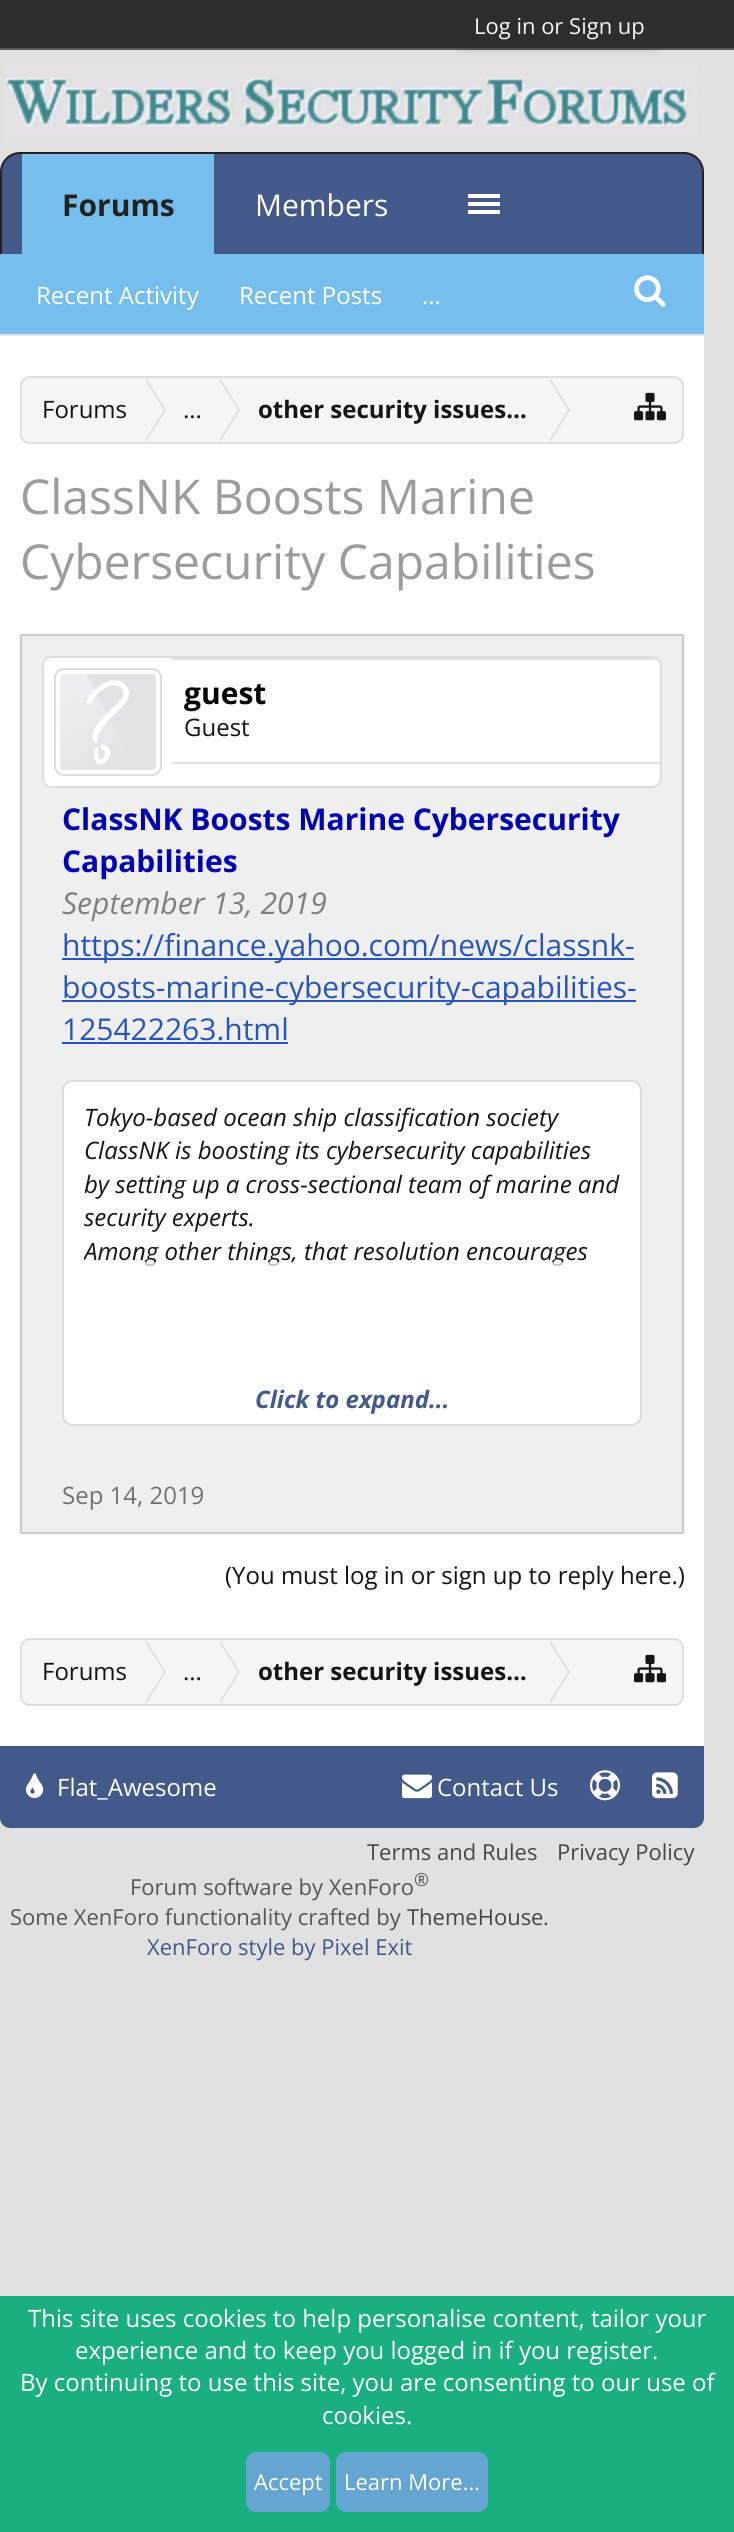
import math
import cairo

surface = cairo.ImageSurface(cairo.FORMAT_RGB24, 734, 2532)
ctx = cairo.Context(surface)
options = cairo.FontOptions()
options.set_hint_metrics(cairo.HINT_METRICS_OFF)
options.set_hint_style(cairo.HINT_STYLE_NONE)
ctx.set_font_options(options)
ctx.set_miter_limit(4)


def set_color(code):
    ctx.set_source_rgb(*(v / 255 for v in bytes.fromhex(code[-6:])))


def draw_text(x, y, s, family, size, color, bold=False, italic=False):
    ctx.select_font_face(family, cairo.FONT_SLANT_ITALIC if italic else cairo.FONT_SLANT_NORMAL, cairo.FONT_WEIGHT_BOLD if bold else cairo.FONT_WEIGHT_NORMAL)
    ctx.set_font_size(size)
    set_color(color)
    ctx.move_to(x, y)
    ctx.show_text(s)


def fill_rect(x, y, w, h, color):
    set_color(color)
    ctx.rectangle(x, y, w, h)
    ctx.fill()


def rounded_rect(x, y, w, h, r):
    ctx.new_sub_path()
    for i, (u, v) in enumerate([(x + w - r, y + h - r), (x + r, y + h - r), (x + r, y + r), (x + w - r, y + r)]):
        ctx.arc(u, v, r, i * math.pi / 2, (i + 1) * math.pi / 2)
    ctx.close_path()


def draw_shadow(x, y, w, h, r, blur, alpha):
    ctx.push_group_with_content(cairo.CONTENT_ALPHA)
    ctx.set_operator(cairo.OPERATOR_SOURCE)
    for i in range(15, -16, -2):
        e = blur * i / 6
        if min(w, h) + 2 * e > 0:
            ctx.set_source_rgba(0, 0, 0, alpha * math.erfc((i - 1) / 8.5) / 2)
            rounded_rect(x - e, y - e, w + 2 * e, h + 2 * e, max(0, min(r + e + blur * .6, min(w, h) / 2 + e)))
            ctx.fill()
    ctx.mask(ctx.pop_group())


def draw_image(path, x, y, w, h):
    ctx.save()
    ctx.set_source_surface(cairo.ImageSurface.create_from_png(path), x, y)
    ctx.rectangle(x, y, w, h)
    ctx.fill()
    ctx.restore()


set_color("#e1e1e2")
ctx.paint()
fill_rect(0, 0, 734, 48, "#2d2d2d")
fill_rect(0, 48, 734, 2, "#585858")
ctx.save()
ctx.set_fill_rule(cairo.FILL_RULE_EVEN_ODD)
ctx.new_path()
ctx.move_to(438, 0)
ctx.line_to(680, 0)
ctx.line_to(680, 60)
ctx.line_to(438, 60)
ctx.close_path()
ctx.move_to(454, 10)
ctx.line_to(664, 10)
ctx.line_to(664, 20)
ctx.curve_to(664, 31, 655, 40, 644, 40)
ctx.line_to(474, 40)
ctx.curve_to(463, 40, 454, 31, 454, 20)
ctx.close_path()
ctx.clip()
set_color("#2d2d2d")
draw_shadow(454, 14, 210, 30, 20, 5, 1)
ctx.restore()
draw_text(474, 34, "Log in or Sign up", "Open Sans", 22, "#f5f5f5")
draw_image("assets/img1.png", 5, 62, 693, 79)
set_color("#425989")
ctx.new_path()
ctx.move_to(20, 153)
ctx.line_to(684, 153)
ctx.curve_to(694.5, 153, 703, 161.5, 703, 172)
ctx.line_to(703, 255)
ctx.line_to(1, 255)
ctx.line_to(1, 172)
ctx.curve_to(1, 161.5, 9.5, 153, 20, 153)
ctx.close_path()
ctx.fill_preserve()
set_color("#222222")
ctx.stroke()
draw_text(255, 216, "Members", "Open Sans", 30, "#ffffff")
fill_rect(22, 154, 192, 100, "#75beee")
draw_text(62, 216, "Forums", "Open Sans", 30, "#222222", bold=True)
fill_rect(0, 254, 704, 80, "#75beee")
draw_text(36, 304, "Recent Activity", "Open Sans", 24, "#ffffff")
draw_text(239, 304, "Recent Posts", "Open Sans", 24, "#ffffff")
draw_text(422, 304, "...", "Open Sans", 24, "#ffffff")
fill_rect(468, 194, 32, 4, "#ffffff")
fill_rect(468, 202, 32, 4, "#ffffff")
fill_rect(468, 210, 32, 4, "#ffffff")
draw_image("assets/img2.png", 634, 275, 32, 32)
fill_rect(0, 336, 704, 1410, "#fefefe")
set_color("#f5f5f5")
rounded_rect(21, 377, 662, 66, 9)
ctx.fill_preserve()
set_color("#dedede")
ctx.stroke()
ctx.save()
rounded_rect(22, 378, 660, 64, 8)
ctx.clip()
set_color("#f5f5f5")
ctx.new_path()
ctx.move_to(32, 378)
ctx.line_to(148, 378)
ctx.line_to(148, 444)
ctx.line_to(32, 444)
ctx.curve_to(26.5, 444, 22, 439.5, 22, 434)
ctx.line_to(22, 388)
ctx.curve_to(22, 382.5, 26.5, 378, 32, 378)
ctx.close_path()
ctx.fill()
ctx.restore()
draw_text(42, 418, "Forums", "Open Sans", 24, "#141414")
set_color("#dedede")
ctx.new_path()
ctx.move_to(146, 442)
ctx.line_to(146, 378)
ctx.line_to(166, 410)
ctx.close_path()
ctx.fill()
set_color("#f5f5f5")
ctx.new_path()
ctx.move_to(144, 442)
ctx.line_to(144, 378)
ctx.line_to(164, 410)
ctx.close_path()
ctx.fill()
draw_text(183, 418, "...", "Open Sans", 24, "#141414")
set_color("#dedede")
ctx.new_path()
ctx.move_to(220, 442)
ctx.line_to(220, 378)
ctx.line_to(240, 410)
ctx.close_path()
ctx.fill()
set_color("#f5f5f5")
ctx.new_path()
ctx.move_to(218, 442)
ctx.line_to(218, 378)
ctx.line_to(238, 410)
ctx.close_path()
ctx.fill()
draw_text(258, 418, "other security issues…", "Open Sans", 24, "#141414", bold=True)
set_color("#dedede")
ctx.new_path()
ctx.move_to(550, 442)
ctx.line_to(550, 378)
ctx.line_to(570, 410)
ctx.close_path()
ctx.fill()
set_color("#f5f5f5")
ctx.new_path()
ctx.move_to(548, 442)
ctx.line_to(548, 378)
ctx.line_to(568, 410)
ctx.close_path()
ctx.fill()
draw_image("assets/img3.png", 634, 392, 32, 29)
draw_text(20, 514, "ClassNK Boosts Marine", "Open Sans", 48, "#9c9c9c")
draw_text(20, 579, "Cybersecurity Capabilities", "Open Sans", 48, "#9c9c9c")
set_color("#efefef")
ctx.rectangle(21, 635, 662, 898)
ctx.fill_preserve()
set_color("#cbcbcb")
ctx.stroke()
set_color("#fefefe")
rounded_rect(43, 657, 618, 130, 9)
ctx.fill_preserve()
set_color("#dedede")
ctx.stroke()
set_color("#fefefe")
rounded_rect(44, 658, 128, 128, 8)
ctx.fill()
rounded_rect(55, 669, 106, 106, 9)
set_color("#dedede")
ctx.stroke()
draw_image("assets/img4.png", 60, 674, 96, 96)
ctx.save()
rounded_rect(44, 658, 616, 128, 8)
ctx.clip()
fill_rect(172, 658, 488, 2, "#e1e1e2")
ctx.restore()
fill_rect(172, 762, 488, 2, "#e1e1e2")
draw_text(184, 704, "guest", "Open Sans", 30, "#000000", bold=True)
draw_text(184, 736, "Guest", "Open Sans", 24, "#141414")
draw_text(62, 830, "ClassNK Boosts Marine Cybersecurity", "Open Sans", 30, "#0000b3", bold=True)
draw_text(62, 872, "Capabilities", "Open Sans", 30, "#0000b3", bold=True)
draw_text(62, 914, "September 13, 2019", "Open Sans", 30, "#808080", italic=True)
fill_rect(62, 958, 572, 2, "#2655bc")
draw_text(62, 956, "https://finance.yahoo.com/news/classnk-", "Open Sans", 30, "#2655bc")
fill_rect(62, 1000, 574, 2, "#2655bc")
draw_text(62, 998, "boosts-marine-cybersecurity-capabilities-", "Open Sans", 30, "#2655bc")
draw_text(62, 1040, "125422263.html", "Open Sans", 30, "#2655bc")
fill_rect(62, 1042, 226, 2, "#2655bc")
rounded_rect(63, 1081, 578, 344, 9)
set_color("#dedede")
ctx.stroke()
set_color("#ffffff")
rounded_rect(64, 1082, 576, 342, 10)
ctx.fill()
draw_text(84, 1126, "Tokyo-based ocean ship classification society", "Open Sans", 24, "#141414", italic=True)
draw_text(84, 1159, "ClassNK is boosting its cybersecurity capabilities", "Open Sans", 24, "#141414", italic=True)
draw_text(84, 1193, "by setting up a cross-sectional team of marine and", "Open Sans", 24, "#141414", italic=True)
draw_text(84, 1226, "security experts.", "Open Sans", 24, "#141414", italic=True)
ctx.save()
ctx.rectangle(84, 1102, 536, 302)
ctx.clip()
draw_text(84, 1260, "Among other things, that resolution encourages", "Open Sans", 24, "#141414", italic=True)
ctx.restore()
gradient = cairo.LinearGradient(352, 1262, 352, 1422)
gradient.add_color_stop_rgba(0, 1, 1, 1, 0.69)
gradient.add_color_stop_rgba(0.52, 1, 1, 1, 0.88)
gradient.add_color_stop_rgba(1, 1, 1, 1, 1)
ctx.set_source(gradient)
ctx.new_path()
ctx.move_to(64, 1262)
ctx.line_to(640, 1262)
ctx.line_to(640, 1412)
ctx.curve_to(640, 1417.5, 635.5, 1422, 630, 1422)
ctx.line_to(74, 1422)
ctx.curve_to(68.5, 1422, 64, 1417.5, 64, 1412)
ctx.close_path()
ctx.fill()
draw_text(255, 1408, "Click to expand...", "Open Sans", 24, "#425989", bold=True, italic=True)
draw_text(62, 1504, "Sep 14, 2019", "Open Sans", 24, "#717171")
draw_text(225, 1584, "(You must log in or sign up to reply here.)", "Open Sans", 24, "#141414")
set_color("#f5f5f5")
rounded_rect(21, 1639, 662, 66, 9)
ctx.fill_preserve()
set_color("#dedede")
ctx.stroke()
ctx.save()
rounded_rect(22, 1640, 660, 64, 8)
ctx.clip()
set_color("#f5f5f5")
ctx.new_path()
ctx.move_to(32, 1640)
ctx.line_to(148, 1640)
ctx.line_to(148, 1706)
ctx.line_to(32, 1706)
ctx.curve_to(26.5, 1706, 22, 1701.5, 22, 1696)
ctx.line_to(22, 1650)
ctx.curve_to(22, 1644.5, 26.5, 1640, 32, 1640)
ctx.close_path()
ctx.fill()
ctx.restore()
draw_text(42, 1680, "Forums", "Open Sans", 24, "#141414")
set_color("#dedede")
ctx.new_path()
ctx.move_to(146, 1704)
ctx.line_to(146, 1640)
ctx.line_to(166, 1672)
ctx.close_path()
ctx.fill()
set_color("#f5f5f5")
ctx.new_path()
ctx.move_to(144, 1704)
ctx.line_to(144, 1640)
ctx.line_to(164, 1672)
ctx.close_path()
ctx.fill()
draw_text(183, 1680, "...", "Open Sans", 24, "#141414")
set_color("#dedede")
ctx.new_path()
ctx.move_to(220, 1704)
ctx.line_to(220, 1640)
ctx.line_to(240, 1672)
ctx.close_path()
ctx.fill()
set_color("#f5f5f5")
ctx.new_path()
ctx.move_to(218, 1704)
ctx.line_to(218, 1640)
ctx.line_to(238, 1672)
ctx.close_path()
ctx.fill()
draw_text(258, 1680, "other security issues…", "Open Sans", 24, "#141414", bold=True)
set_color("#dedede")
ctx.new_path()
ctx.move_to(550, 1704)
ctx.line_to(550, 1640)
ctx.line_to(570, 1672)
ctx.close_path()
ctx.fill()
set_color("#f5f5f5")
ctx.new_path()
ctx.move_to(548, 1704)
ctx.line_to(548, 1640)
ctx.line_to(568, 1672)
ctx.close_path()
ctx.fill()
draw_image("assets/img3.png", 634, 1654, 32, 29)
set_color("#425989")
ctx.new_path()
ctx.move_to(0, 1746)
ctx.line_to(704, 1746)
ctx.line_to(704, 1818)
ctx.curve_to(704, 1823.5, 699.5, 1828, 694, 1828)
ctx.line_to(10, 1828)
ctx.curve_to(4.5, 1828, 0, 1823.5, 0, 1818)
ctx.close_path()
ctx.fill()
draw_image("assets/img5.png", 26, 1773, 18, 25)
draw_text(57, 1796, "Flat_Awesome", "Open Sans", 24, "#ffffff")
draw_image("assets/img6.png", 402, 1774, 30, 25)
draw_text(437, 1796, "Contact Us", "Open Sans", 24, "#ffffff")
draw_image("assets/img7.png", 590, 1770, 30, 31)
draw_image("assets/img8.png", 652, 1772, 26, 27)
draw_text(367, 1860, "Terms and Rules", "Open Sans", 22, "#464646")
draw_text(557, 1860, "Privacy Policy", "Open Sans", 22, "#464646")
draw_text(130, 1895, "Forum software by XenForo", "Open Sans", 22, "#565656")
draw_text(414, 1886, "®", "Open Sans", 18, "#565656")
draw_text(10, 1925, "Some XenForo functionality crafted by", "Open Sans", 22, "#565656")
draw_text(407, 1925, "ThemeHouse", "Open Sans", 22, "#464646")
draw_text(543, 1925, ".", "Open Sans", 22, "#565656")
draw_text(147, 1955, "XenForo style by Pixel Exit", "Open Sans", 22, "#425989")
fill_rect(0, 2296, 734, 236, "#19af7e")
draw_text(28, 2327, "This site uses cookies to help personalise content, tailor your", "Open Sans", 24, "#ffffff")
draw_text(75, 2359, "experience and to keep you logged in if you register.", "Open Sans", 24, "#ffffff")
draw_text(20, 2391, "By continuing to use this site, you are consenting to our use of", "Open Sans", 24, "#ffffff")
draw_text(322, 2424, "cookies.", "Open Sans", 24, "#ffffff")
set_color("#65a5d1")
rounded_rect(246, 2452, 84, 60, 10)
ctx.fill()
draw_text(254, 2490, "Accept", "Open Sans", 22, "#ffffff")
set_color("#65a5d1")
rounded_rect(336, 2452, 152, 60, 10)
ctx.fill()
draw_text(344, 2490, "Learn More...", "Open Sans", 22, "#ffffff")
surface.write_to_png("output.png")
